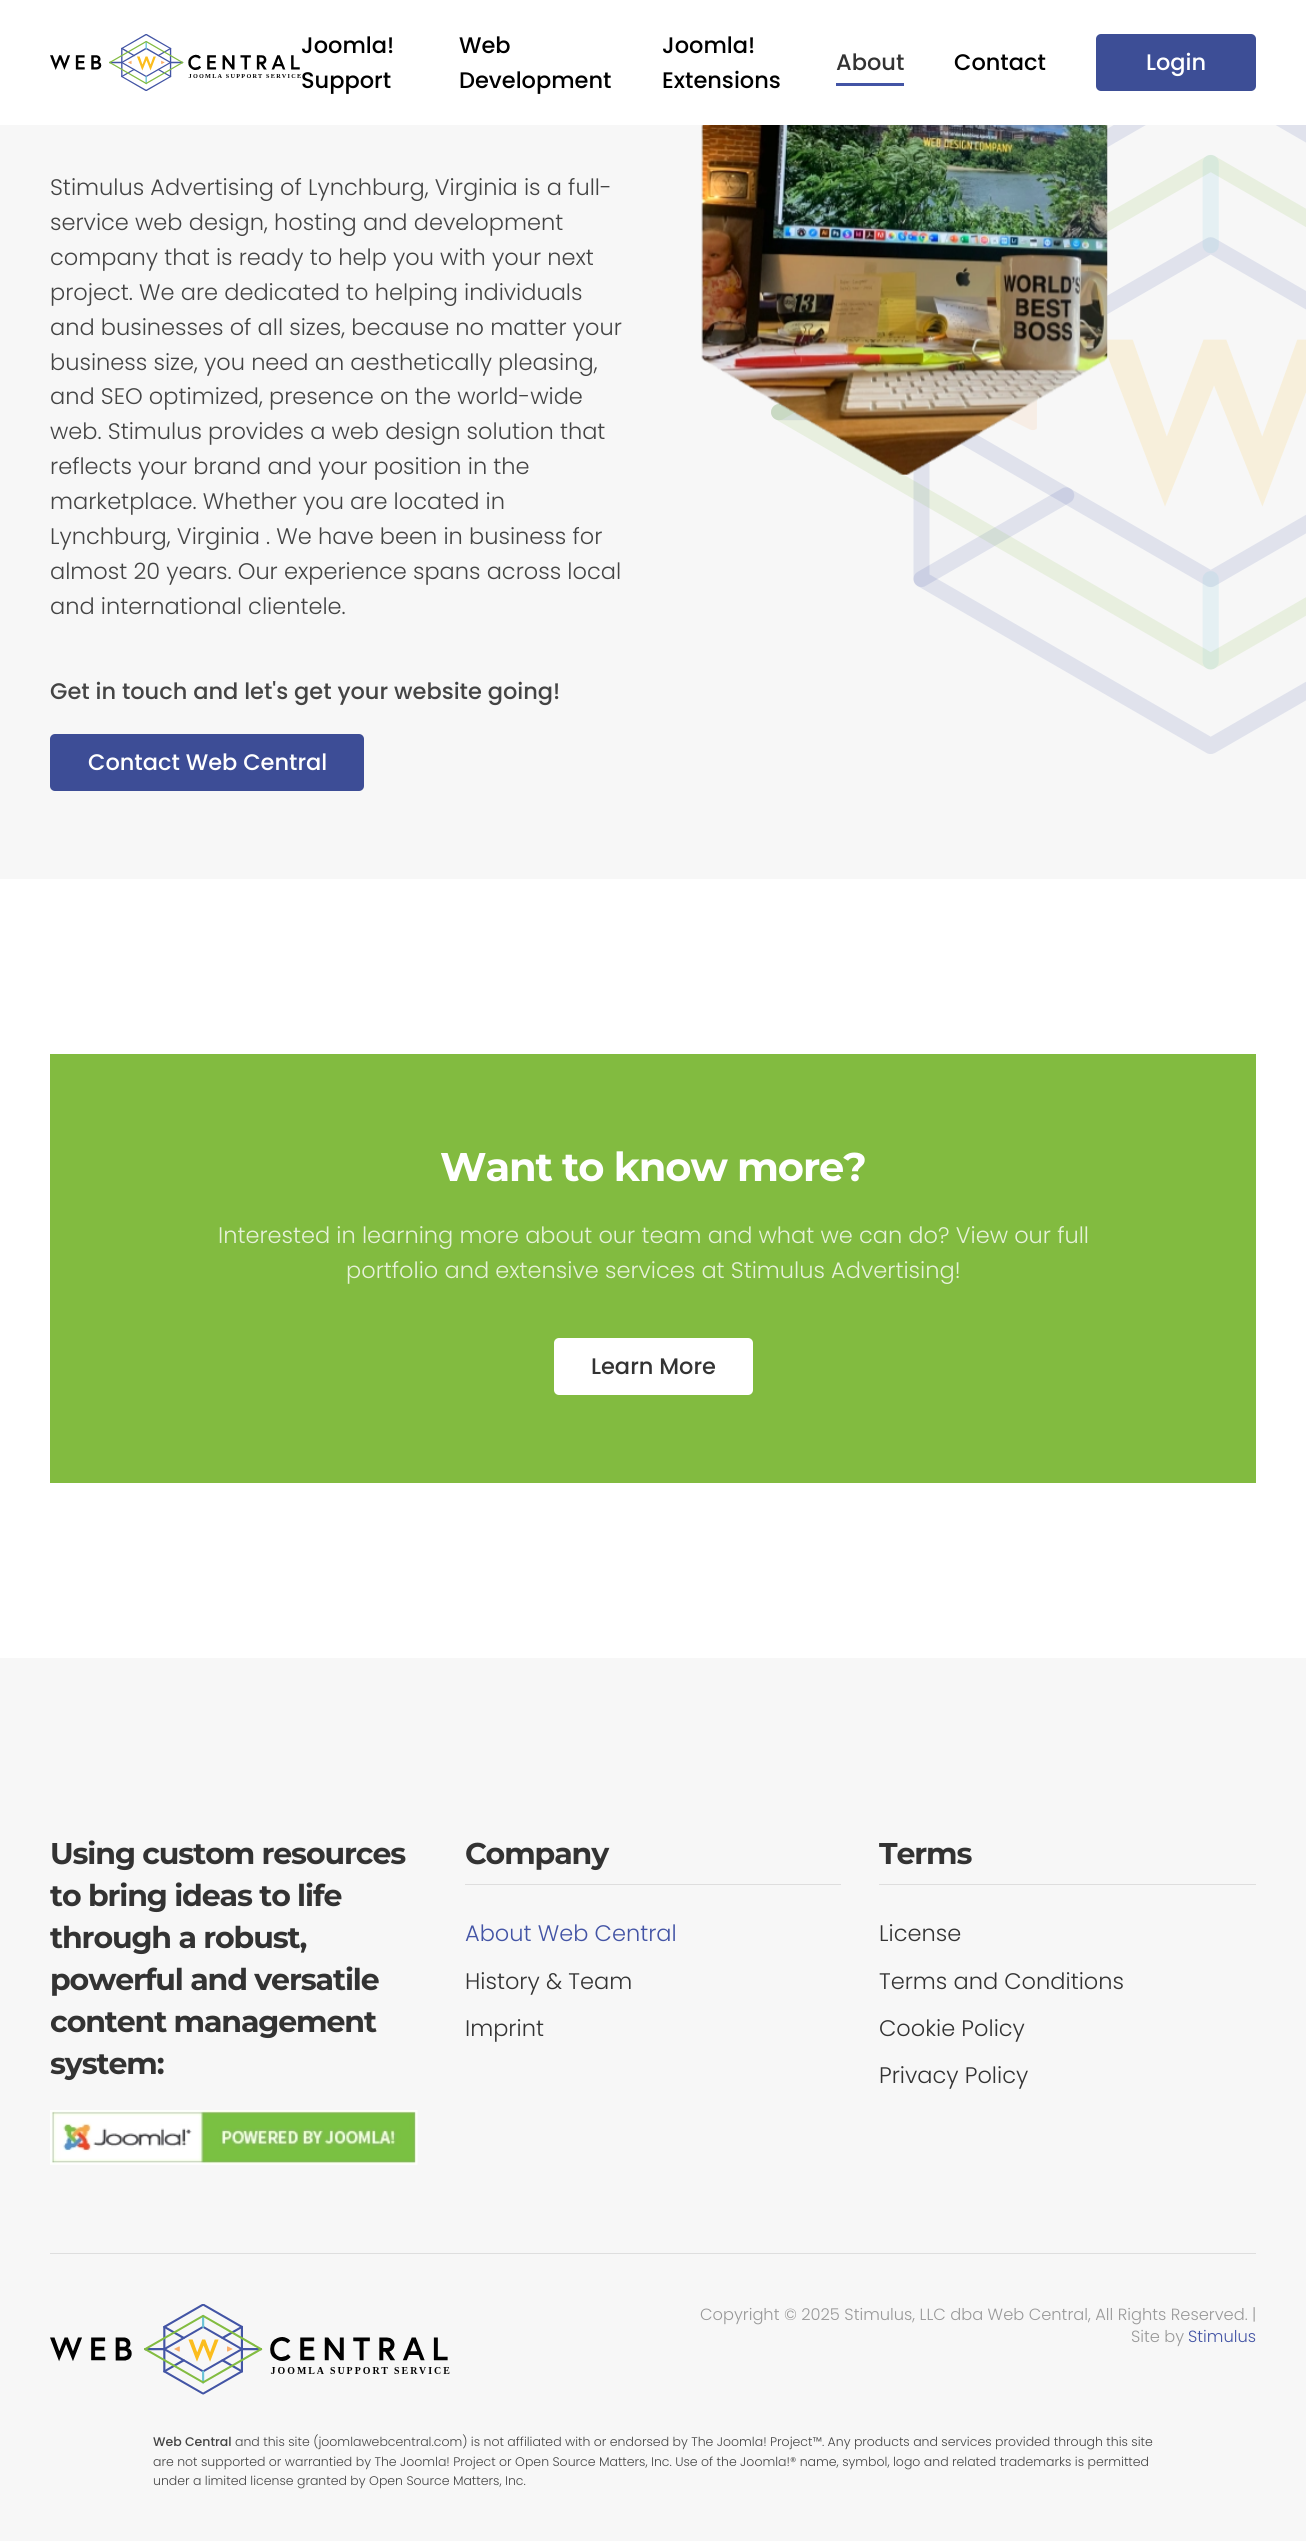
import math
import cairo

surface = cairo.ImageSurface(cairo.FORMAT_RGB24, 1306, 2541)
ctx = cairo.Context(surface)
options = cairo.FontOptions()
options.set_hint_metrics(cairo.HINT_METRICS_OFF)
options.set_hint_style(cairo.HINT_STYLE_NONE)
ctx.set_font_options(options)
ctx.set_miter_limit(4)


def set_color(code):
    ctx.set_source_rgb(*(v / 255 for v in bytes.fromhex(code[-6:])))


def draw_text(x, y, s, family, size, color, bold=False, italic=False):
    ctx.select_font_face(family, cairo.FONT_SLANT_ITALIC if italic else cairo.FONT_SLANT_NORMAL, cairo.FONT_WEIGHT_BOLD if bold else cairo.FONT_WEIGHT_NORMAL)
    ctx.set_font_size(size)
    set_color(color)
    ctx.move_to(x, y)
    ctx.show_text(s)


def draw_spaced(x, y, s, letter, word):
    ctx.move_to(x, y)
    for ch in s:
        ctx.show_text(ch)
        ctx.rel_move_to(letter + word * (ch == ' '), 0)


def fill_rect(x, y, w, h, color):
    set_color(color)
    ctx.rectangle(x, y, w, h)
    ctx.fill()


def rounded_rect(x, y, w, h, r):
    ctx.new_sub_path()
    for i, (u, v) in enumerate([(x + w - r, y + h - r), (x + r, y + h - r), (x + r, y + r), (x + w - r, y + r)]):
        ctx.arc(u, v, r, i * math.pi / 2, (i + 1) * math.pi / 2)
    ctx.close_path()


def draw_image(path, x, y, w, h):
    ctx.save()
    ctx.set_source_surface(cairo.ImageSurface.create_from_png(path), x, y)
    ctx.rectangle(x, y, w, h)
    ctx.fill()
    ctx.restore()


set_color("#ffffff")
ctx.paint()
draw_image("assets/img1.png", 50, 34, 251, 57)
draw_text(301, 53, "Joomla!", "Poppins Medium", 22.5, "#000000")
draw_text(301, 88, "Support", "Poppins Medium", 22.5, "#000000")
draw_text(459, 53, "Web", "Poppins Medium", 22.5, "#000000")
draw_text(459, 88, "Development", "Poppins Medium", 22.5, "#000000")
draw_text(662, 53, "Joomla!", "Poppins Medium", 22.5, "#000000")
draw_text(662, 88, "Extensions", "Poppins Medium", 22.5, "#000000")
draw_text(836, 70, "About", "Poppins Medium", 22.5, "#333333")
fill_rect(836, 83, 68, 3, "#4354a5")
draw_text(954, 70, "Contact", "Poppins Medium", 22.5, "#000000")
set_color("#3d4e96")
rounded_rect(1096, 34, 160, 57, 5)
ctx.fill()
draw_text(1146, 70, "Login", "Poppins Medium", 22.5, "#ffffff")
fill_rect(0, 125, 1306, 754, "#f7f7f7")
draw_text(50, 195, "Stimulus Advertising of Lynchburg, Virginia is a full-", "Poppins Light", 22.5, "#444444")
draw_text(50, 230, "service web design, hosting and development", "Poppins Light", 22.5, "#444444")
draw_text(50, 265, "company that is ready to help you with your next", "Poppins Light", 22.5, "#444444")
draw_text(50, 300, "project. We are dedicated to helping individuals", "Poppins Light", 22.5, "#444444")
draw_text(50, 335, "and businesses of all sizes, because no matter your", "Poppins Light", 22.5, "#444444")
draw_text(50, 370, "business size, you need an aesthetically pleasing,", "Poppins Light", 22.5, "#444444")
draw_text(50, 404, "and SEO optimized, presence on the world-wide", "Poppins Light", 22.5, "#444444")
draw_text(50, 439, "web. Stimulus provides a web design solution that", "Poppins Light", 22.5, "#444444")
draw_text(50, 474, "reflects your brand and your position in the", "Poppins Light", 22.5, "#444444")
draw_text(50, 509, "marketplace. Whether you are located in", "Poppins Light", 22.5, "#444444")
draw_text(50, 544, "Lynchburg, Virginia . We have been in business for", "Poppins Light", 22.5, "#444444")
draw_text(50, 579, "almost 20 years. Our experience spans across local", "Poppins Light", 22.5, "#444444")
draw_text(50, 614, "and international clientele.", "Poppins Light", 22.5, "#444444")
draw_text(50, 699, "Get in touch and let's get your website going!", "Poppins Medium", 22.5, "#444444")
set_color("#3d4d96")
rounded_rect(50, 734, 314, 57, 5)
ctx.fill()
draw_text(88, 770, "Contact Web Central", "Poppins Medium", 22.5, "#ffffff")
draw_image("assets/img3.png", 771, 125, 535, 629)
draw_image("assets/img2.png", 701, 125, 407, 350)
fill_rect(50, 1054, 1206, 429, "#82bb40")
ctx.select_font_face("Montserrat Thin")
ctx.set_font_size(40)
set_color("#ffffff")
draw_spaced(440, 1181, "Want to know more?", -1.1, 0)
draw_text(218, 1243, "Interested in learning more about our team and what we can do? View our full", "Poppins Light", 22.5, "#e6f1d9")
draw_text(346, 1278, "portfolio and extensive services at Stimulus Advertising!", "Poppins Light", 22.5, "#e6f1d9")
set_color("#ffffff")
rounded_rect(554, 1338, 199, 57, 5)
ctx.fill()
draw_text(591, 1374, "Learn More", "Poppins Medium", 22.5, "#333333")
fill_rect(0, 1658, 1306, 883, "#f7f7f7")
ctx.select_font_face("Montserrat Thin")
ctx.set_font_size(30)
set_color("#333333")
draw_spaced(50, 1864, "Using custom resources", -1.1, 0)
draw_spaced(50, 1906, "to bring ideas to life", -1.1, 0)
draw_spaced(50, 1948, "through a robust,", -1.1, 0)
draw_spaced(50, 1990, "powerful and versatile", -1.1, 0)
draw_spaced(50, 2032, "content management", -1.1, 0)
draw_spaced(50, 2074, "system:", -1.1, 0)
draw_image("assets/img4.png", 50, 2110, 368, 55)
fill_rect(465, 1884, 376, 1, "#dedede")
set_color("#333333")
draw_spaced(465, 1864, "Company", -1.1, 0)
draw_text(465, 1941, "About Web Central", "Poppins Light", 22.5, "#4354a5")
draw_text(465, 1989, "History & Team", "Poppins Light", 22.5, "#333333")
draw_text(465, 2036, "Imprint", "Poppins Light", 22.5, "#333333")
fill_rect(879, 1884, 377, 1, "#dedede")
ctx.select_font_face("Montserrat Thin")
ctx.set_font_size(30)
set_color("#333333")
draw_spaced(879, 1864, "Terms", -1.1, 0)
draw_text(879, 1941, "License", "Poppins Light", 22.5, "#333333")
draw_text(879, 1989, "Terms and Conditions", "Poppins Light", 22.5, "#333333")
draw_text(879, 2036, "Cookie Policy", "Poppins Light", 22.5, "#333333")
draw_text(879, 2083, "Privacy Policy", "Poppins Light", 22.5, "#333333")
fill_rect(50, 2253, 1206, 1, "#dedede")
draw_image("assets/img5.png", 50, 2304, 400, 91)
draw_text(700, 2320, "Copyright © 2025 Stimulus, LLC dba Web Central, All Rights Reserved. |", "Poppins Light", 16.25, "#999999")
draw_text(1131, 2342, "Site by", "Poppins Light", 16.25, "#999999")
draw_text(1188, 2342, "Stimulus", "Poppins Light", 16.25, "#4354a5")
draw_text(153, 2446, "Web Central", "Poppins Medium", 12.5, "#444444")
draw_text(235, 2446, "and this site (joomlawebcentral.com) is not affiliated with or endorsed by The Joomla! Project™. Any products and services provided through this site", "Poppins Light", 12.5, "#444444")
draw_text(153, 2466, "are not supported or warrantied by The Joomla! Project or Open Source Matters, Inc. Use of the Joomla!® name, symbol, logo and related trademarks is permitted", "Poppins Light", 12.5, "#444444")
draw_text(153, 2485, "under a limited license granted by Open Source Matters, Inc.", "Poppins Light", 12.5, "#444444")
surface.write_to_png("output.png")
